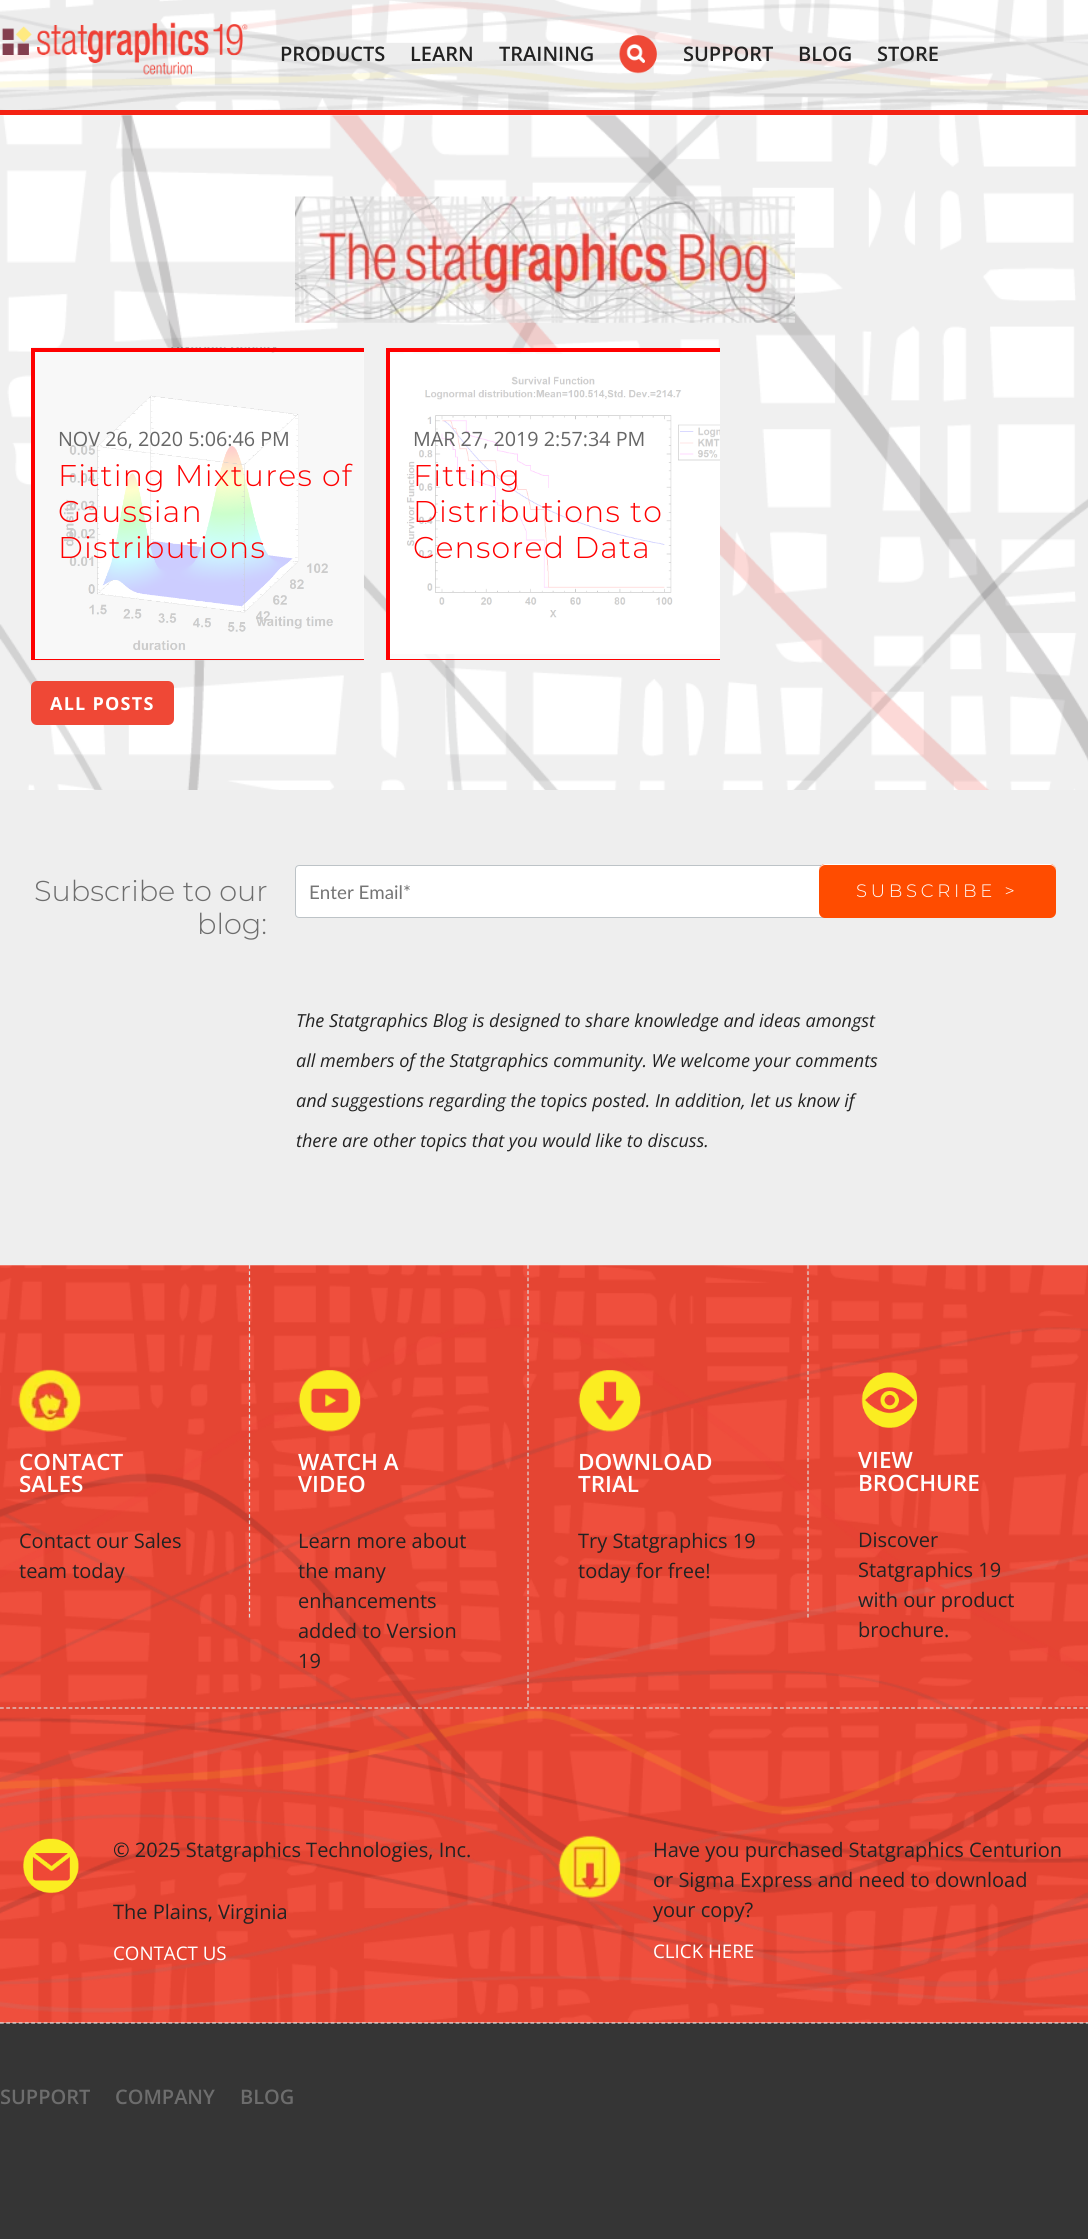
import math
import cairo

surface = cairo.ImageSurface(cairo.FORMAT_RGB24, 1088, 2239)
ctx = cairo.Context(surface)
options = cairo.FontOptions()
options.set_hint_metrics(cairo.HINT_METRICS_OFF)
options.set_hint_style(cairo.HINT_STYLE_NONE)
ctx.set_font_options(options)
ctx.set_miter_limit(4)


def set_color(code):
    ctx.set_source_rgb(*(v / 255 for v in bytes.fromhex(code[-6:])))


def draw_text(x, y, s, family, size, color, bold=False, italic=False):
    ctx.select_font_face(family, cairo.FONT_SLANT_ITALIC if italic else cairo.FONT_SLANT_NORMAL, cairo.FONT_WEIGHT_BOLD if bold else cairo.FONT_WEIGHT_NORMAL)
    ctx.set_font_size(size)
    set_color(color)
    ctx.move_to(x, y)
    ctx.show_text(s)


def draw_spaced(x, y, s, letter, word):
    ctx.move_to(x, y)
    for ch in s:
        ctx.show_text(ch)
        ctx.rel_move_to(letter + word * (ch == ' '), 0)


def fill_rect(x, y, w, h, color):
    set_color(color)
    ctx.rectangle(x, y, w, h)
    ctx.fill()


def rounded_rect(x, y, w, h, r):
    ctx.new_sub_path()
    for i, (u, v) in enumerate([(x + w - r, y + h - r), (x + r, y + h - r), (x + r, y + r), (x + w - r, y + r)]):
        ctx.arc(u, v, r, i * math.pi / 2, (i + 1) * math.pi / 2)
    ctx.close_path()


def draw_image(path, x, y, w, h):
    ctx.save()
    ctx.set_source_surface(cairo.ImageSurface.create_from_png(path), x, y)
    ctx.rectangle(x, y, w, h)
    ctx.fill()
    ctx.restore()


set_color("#ffffff")
ctx.paint()
draw_image("assets/img1.png", 0, 0, 1088, 110)
fill_rect(0, 110, 1088, 5, "#f42213")
draw_image("assets/img2.png", 1, 22, 247, 53)
draw_text(280, 61, "PRODUCTS", "Open Sans SemiBold", 20, "#222222")
draw_text(410, 61, "LEARN", "Open Sans SemiBold", 20, "#222222")
draw_text(499, 61, "TRAINING", "Open Sans SemiBold", 20, "#222222")
draw_image("assets/img3.png", 619, 35, 38, 39)
draw_text(683, 61, "SUPPORT", "Open Sans SemiBold", 20, "#222222")
draw_text(798, 61, "BLOG", "Open Sans SemiBold", 20, "#222222")
draw_text(877, 61, "STORE", "Open Sans SemiBold", 20, "#222222")
draw_image("assets/img4.png", 0, 115, 1088, 1151)
draw_image("assets/img5.png", 295, 196, 500, 127)
draw_image("assets/img6.png", 31, 347, 333, 314)
ctx.set_source_rgba(1, 1, 1, 0.8)
ctx.rectangle(35, 352, 329, 307)
ctx.fill()
ctx.save()
ctx.rectangle(31, 348, 333, 312)
ctx.clip()
ctx.rectangle(33, 350, 345, 311)
set_color("#ff0000")
ctx.set_line_width(4)
ctx.stroke()
ctx.restore()
draw_text(58, 446, "NOV 26, 2020 5:06:46 PM", "Open Sans", 19.75, "#666666")
ctx.select_font_face("Montserrat Light")
ctx.set_font_size(30)
set_color("#ff0000")
draw_spaced(58, 486, "Fitting Mixtures of", 1.25, 0)
draw_spaced(58, 522, "Gaussian", 1.25, 0)
draw_spaced(58, 558, "Distributions", 1.25, 0)
draw_image("assets/img7.png", 390, 354, 330, 300)
ctx.set_source_rgba(1, 1, 1, 0.8)
ctx.rectangle(390, 352, 330, 307)
ctx.fill()
ctx.save()
ctx.rectangle(386, 348, 334, 312)
ctx.clip()
ctx.rectangle(388, 350, 346, 311)
set_color("#ff0000")
ctx.set_line_width(4)
ctx.stroke()
ctx.restore()
draw_text(413, 446, "MAR 27, 2019 2:57:34 PM", "Open Sans", 19.75, "#666666")
ctx.select_font_face("Montserrat Light")
ctx.set_font_size(30)
set_color("#ff0000")
draw_spaced(413, 486, "Fitting", 1.25, 0)
draw_spaced(413, 522, "Distributions to", 1.25, 0)
draw_spaced(413, 558, "Censored Data", 1.25, 0)
set_color("#ef4836")
rounded_rect(31, 681, 143, 44, 6)
ctx.fill()
ctx.select_font_face("Open Sans", cairo.FONT_SLANT_NORMAL, cairo.FONT_WEIGHT_BOLD)
ctx.set_font_size(18)
set_color("#ffffff")
draw_spaced(50, 710, "ALL POSTS", 1.25, 0)
fill_rect(0, 790, 1088, 475, "#eeeeee")
draw_text(34, 901, "Subscribe to our", "Montserrat Light", 28.75, "#6d6d6d")
draw_text(197, 934, "blog:", "Montserrat Light", 28.75, "#6d6d6d")
set_color("#ffffff")
rounded_rect(295.5, 865.5, 585, 52, 3.5)
ctx.fill_preserve()
set_color("#bdc3c7")
ctx.set_line_width(1)
ctx.stroke()
draw_text(309, 899, "Enter Email*", "Lato", 18.75, "#757575")
set_color("#ff4c00")
rounded_rect(819, 864, 237, 54, 6)
ctx.fill()
set_color("#ffffff")
ctx.new_path()
ctx.move_to(825, 865)
ctx.line_to(1050, 865)
ctx.curve_to(1053, 865, 1056, 868, 1056, 871)
ctx.line_to(1056, 870)
ctx.curve_to(1056, 867, 1053, 864, 1050, 864)
ctx.line_to(825, 864)
ctx.curve_to(822, 864, 819, 867, 819, 870)
ctx.line_to(819, 871)
ctx.curve_to(819, 868, 822, 865, 825, 865)
ctx.close_path()
ctx.fill()
ctx.select_font_face("Montserrat Light")
ctx.set_font_size(18)
draw_spaced(856, 897, "SUBSCRIBE >", 3.75, 0)
draw_text(296, 1027, "The Statgraphics Blog is designed to share knowledge and ideas amongst", "Open Sans", 18, "#222222", italic=True)
draw_text(296, 1067, "all members of the Statgraphics community. We welcome your comments", "Open Sans", 18, "#222222", italic=True)
draw_text(296, 1107, "and suggestions regarding the topics posted. In addition, let us know if", "Open Sans", 18, "#222222", italic=True)
draw_text(296, 1147, "there are other topics that you would like to discuss.", "Open Sans", 18, "#222222", italic=True)
draw_image("assets/img8.png", 0, 1265, 1088, 758)
ctx.new_path()
ctx.move_to(0, 1708)
ctx.line_to(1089, 1708)
set_color("#dddddd")
ctx.set_line_width(1.2)
ctx.set_dash([3.75, 2.49])
ctx.stroke()
ctx.new_path()
ctx.move_to(249.5, 1265)
ctx.line_to(249.5, 1617.5)
ctx.set_dash([3.75, 2.48])
ctx.stroke()
draw_image("assets/img9.png", 18, 1369, 64, 63)
draw_text(19, 1470, "CONTACT", "Open Sans SemiBold", 22.5, "#ffffff")
draw_text(19, 1492, "SALES", "Open Sans SemiBold", 22.5, "#ffffff")
draw_text(19, 1548, "Contact our Sales", "Open Sans", 20, "#222222")
draw_text(19, 1578, "team today", "Open Sans", 20, "#222222")
ctx.new_path()
ctx.move_to(528, 1265)
ctx.line_to(528, 1707.5)
set_color("#dddddd")
ctx.set_dash([3.75, 2.51])
ctx.stroke()
draw_image("assets/img10.png", 298, 1370, 63, 62)
draw_text(298, 1470, "WATCH A", "Open Sans SemiBold", 22.5, "#ffffff")
draw_text(298, 1492, "VIDEO", "Open Sans SemiBold", 22.5, "#ffffff")
draw_text(298, 1548, "Learn more about", "Open Sans", 20, "#222222")
draw_text(298, 1578, "the many", "Open Sans", 20, "#222222")
draw_text(298, 1608, "enhancements", "Open Sans", 20, "#222222")
draw_text(298, 1638, "added to Version", "Open Sans", 20, "#222222")
draw_text(298, 1668, "19", "Open Sans", 20, "#222222")
ctx.new_path()
ctx.move_to(808, 1265)
ctx.line_to(808, 1617.5)
set_color("#dddddd")
ctx.set_dash([3.75, 2.48])
ctx.stroke()
draw_image("assets/img11.png", 578, 1370, 63, 62)
draw_text(578, 1470, "DOWNLOAD", "Open Sans SemiBold", 22.5, "#ffffff")
draw_text(578, 1492, "TRIAL", "Open Sans SemiBold", 22.5, "#ffffff")
draw_text(578, 1548, "Try Statgraphics 19", "Open Sans", 20, "#222222")
draw_text(578, 1578, "today for free!", "Open Sans", 20, "#222222")
draw_image("assets/img12.png", 861, 1372, 57, 56)
draw_text(858, 1468, "VIEW", "Open Sans SemiBold", 22.5, "#ffffff")
draw_text(858, 1491, "BROCHURE", "Open Sans SemiBold", 22.5, "#ffffff")
draw_text(858, 1547, "Discover", "Open Sans", 20, "#222222")
draw_text(858, 1577, "Statgraphics 19", "Open Sans", 20, "#222222")
draw_text(858, 1607, "with our product", "Open Sans", 20, "#222222")
draw_text(858, 1637, "brochure.", "Open Sans", 20, "#222222")
draw_image("assets/img13.png", 23, 1838, 56, 56)
draw_text(113, 1857, "© 2025 Statgraphics Technologies, Inc.", "Open Sans", 20, "#222222")
draw_text(113, 1919, "The Plains, Virginia", "Open Sans", 20, "#222222")
draw_text(113, 1960, "CONTACT US", "Open Sans", 18.75, "#ffffff")
draw_image("assets/img14.png", 558, 1835, 64, 63)
draw_text(653, 1857, "Have you purchased Statgraphics Centurion", "Open Sans", 20, "#222222")
draw_text(653, 1887, "or Sigma Express and need to download", "Open Sans", 20, "#222222")
draw_text(653, 1917, "your copy?", "Open Sans", 20, "#222222")
draw_text(653, 1958, "CLICK HERE", "Open Sans", 18.75, "#ffffff")
fill_rect(0, 2023, 1088, 216, "#353535")
ctx.new_path()
ctx.move_to(0, 2023)
ctx.line_to(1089, 2023)
set_color("#dddddd")
ctx.set_dash([3.75, 2.49])
ctx.stroke()
draw_text(0, 2104, "SUPPORT", "Open Sans SemiBold", 20, "#6d6d6d")
draw_text(115, 2104, "COMPANY", "Open Sans SemiBold", 20, "#6d6d6d")
draw_text(240, 2104, "BLOG", "Open Sans SemiBold", 20, "#6d6d6d")
surface.write_to_png("output.png")
